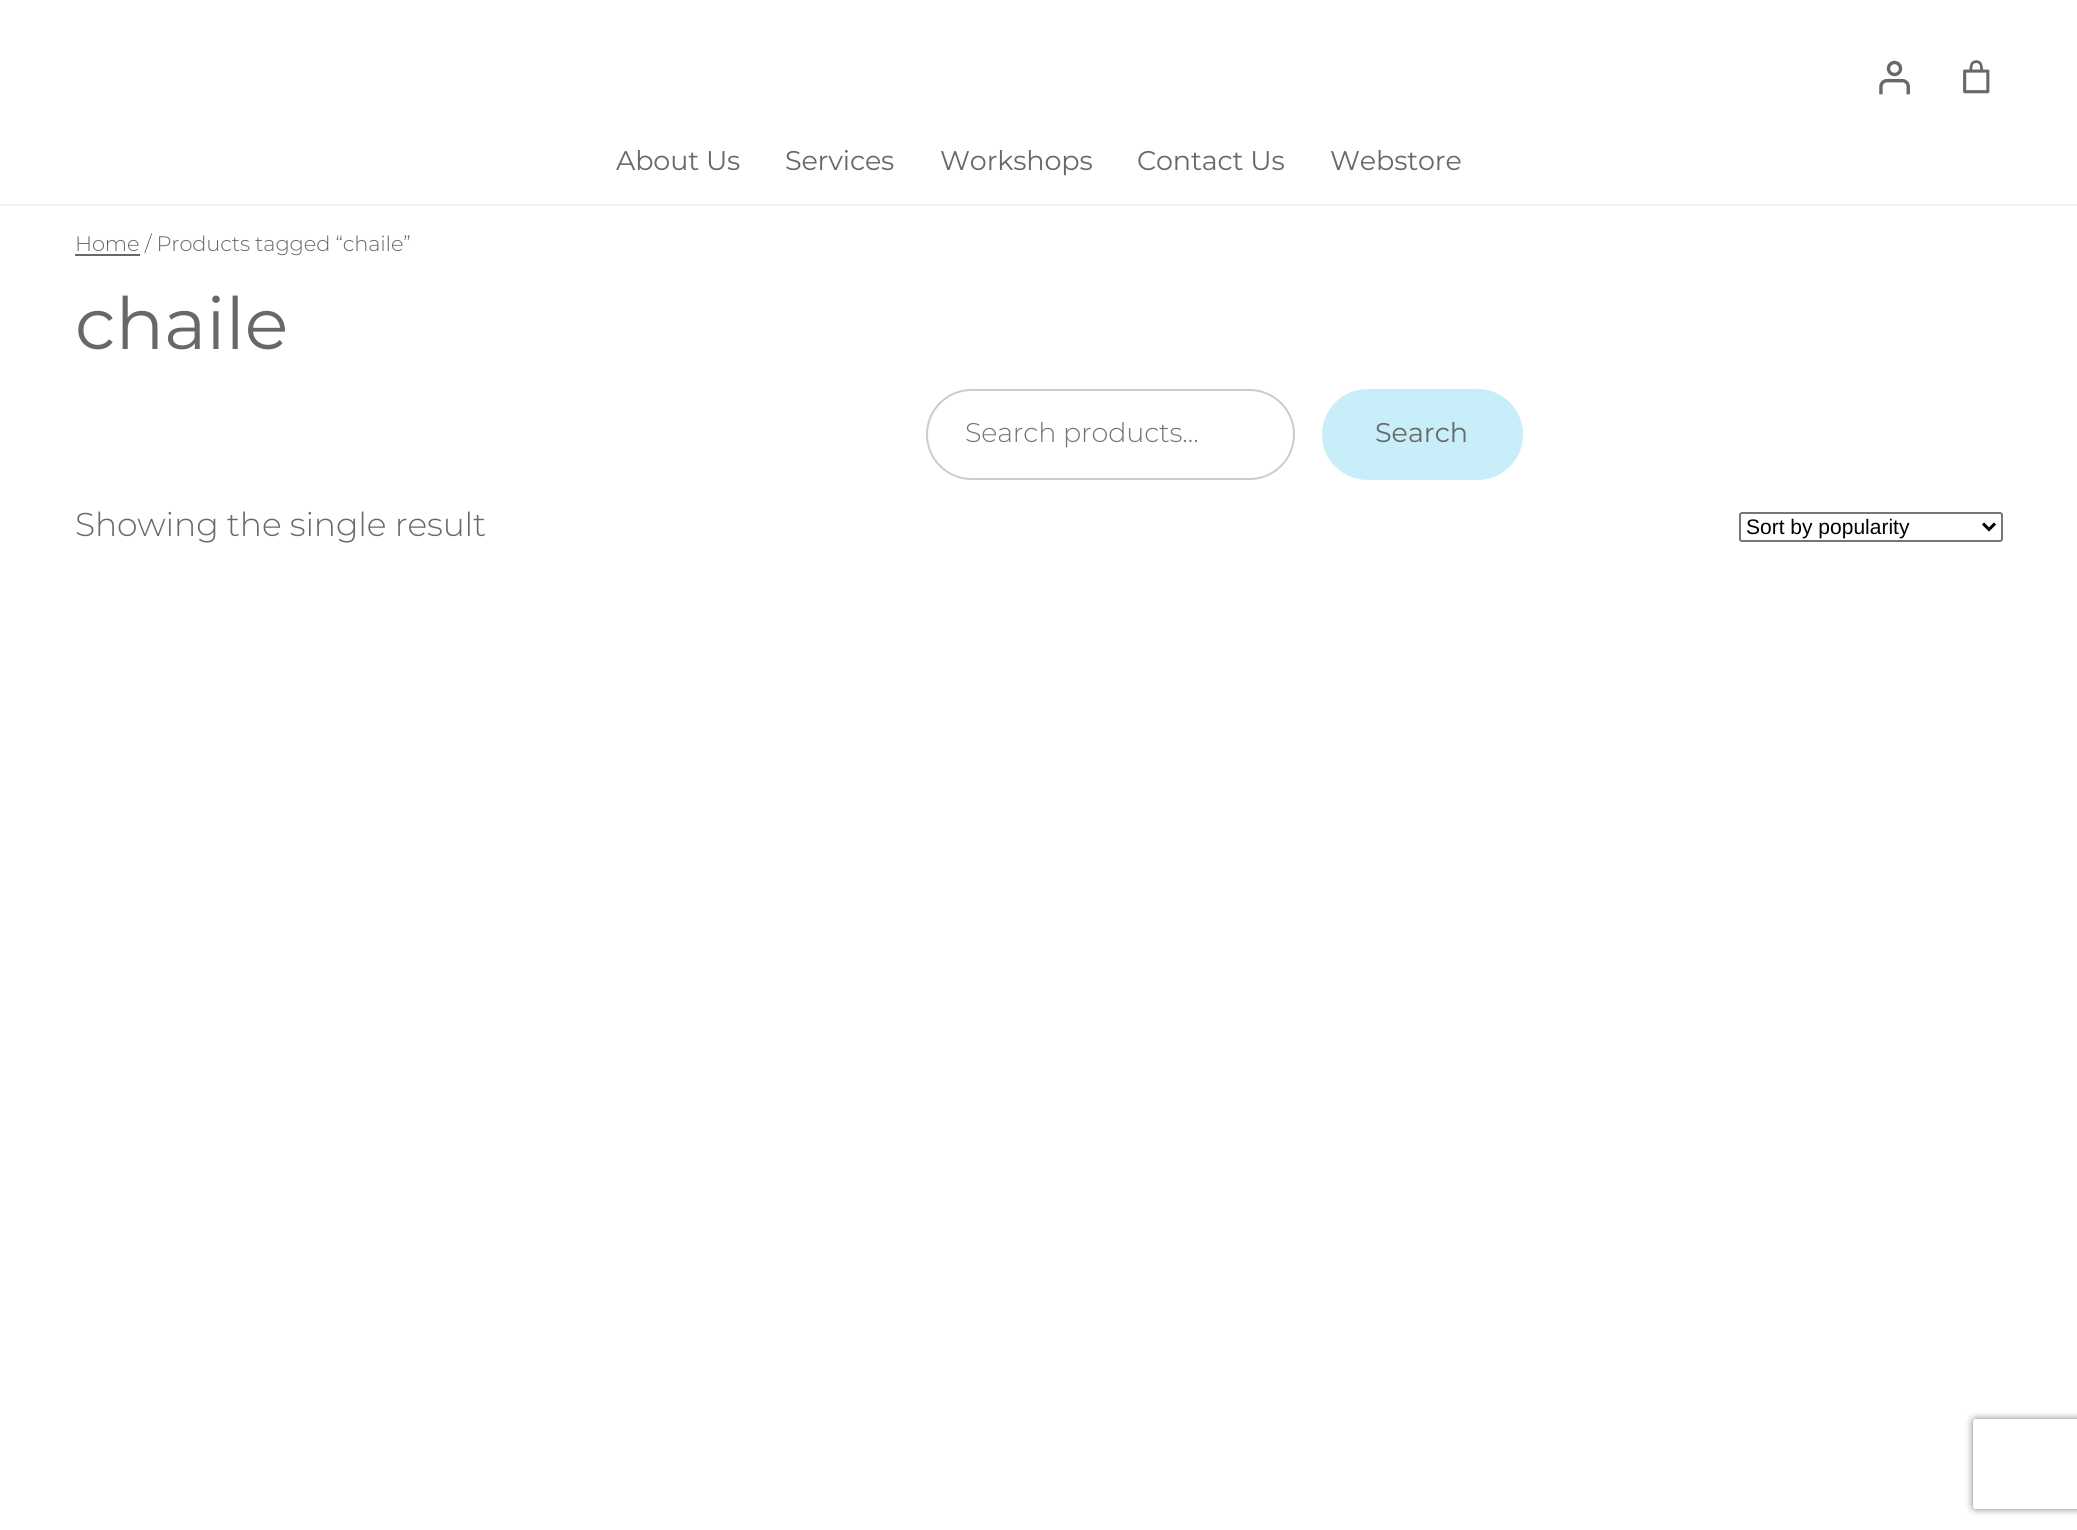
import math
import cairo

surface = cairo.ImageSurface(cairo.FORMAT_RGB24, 2077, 1530)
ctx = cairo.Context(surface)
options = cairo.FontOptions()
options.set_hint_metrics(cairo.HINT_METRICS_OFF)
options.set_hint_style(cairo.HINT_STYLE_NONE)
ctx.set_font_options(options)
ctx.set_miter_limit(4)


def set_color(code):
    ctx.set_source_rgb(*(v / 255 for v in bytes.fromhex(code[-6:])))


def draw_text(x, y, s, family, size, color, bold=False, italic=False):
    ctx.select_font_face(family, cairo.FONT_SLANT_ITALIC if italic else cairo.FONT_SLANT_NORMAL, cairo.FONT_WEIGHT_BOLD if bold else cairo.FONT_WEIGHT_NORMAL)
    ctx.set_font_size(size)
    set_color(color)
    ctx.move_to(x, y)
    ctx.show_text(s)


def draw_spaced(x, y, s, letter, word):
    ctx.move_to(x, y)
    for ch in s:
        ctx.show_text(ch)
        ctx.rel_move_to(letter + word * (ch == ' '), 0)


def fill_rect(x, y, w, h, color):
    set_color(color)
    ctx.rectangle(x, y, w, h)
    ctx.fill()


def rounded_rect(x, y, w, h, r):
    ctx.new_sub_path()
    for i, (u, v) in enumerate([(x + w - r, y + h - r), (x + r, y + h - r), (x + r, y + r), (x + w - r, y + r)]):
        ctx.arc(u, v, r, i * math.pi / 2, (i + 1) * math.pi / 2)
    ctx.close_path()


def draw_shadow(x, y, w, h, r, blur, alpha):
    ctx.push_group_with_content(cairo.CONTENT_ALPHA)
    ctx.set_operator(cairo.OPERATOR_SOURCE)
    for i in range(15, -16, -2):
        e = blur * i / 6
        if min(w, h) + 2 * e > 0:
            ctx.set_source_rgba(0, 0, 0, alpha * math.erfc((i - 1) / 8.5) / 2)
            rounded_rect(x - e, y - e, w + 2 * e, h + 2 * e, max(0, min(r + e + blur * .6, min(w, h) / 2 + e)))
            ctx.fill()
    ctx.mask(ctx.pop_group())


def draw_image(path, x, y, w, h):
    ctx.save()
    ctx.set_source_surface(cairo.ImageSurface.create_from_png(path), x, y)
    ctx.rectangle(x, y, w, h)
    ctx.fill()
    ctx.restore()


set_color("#ffffff")
ctx.paint()
draw_image("assets/img1.png", 1879, 60, 31, 35)
draw_image("assets/img2.png", 1963, 60, 27, 34)
ctx.select_font_face("Montserrat")
ctx.set_font_size(27)
set_color("#686868")
draw_spaced(616, 170, "About Us", -0.15, 0)
draw_spaced(785, 170, "Services", -0.15, 0)
draw_spaced(940, 170, "Workshops", -0.15, 0)
draw_spaced(1137, 170, "Contact Us", -0.15, 0)
draw_spaced(1330, 170, "Webstore", -0.15, 0)
fill_rect(0, 204, 2077, 2, "#efefef")
fill_rect(75, 254, 65, 2, "#686868")
ctx.select_font_face("Montserrat Light")
ctx.set_font_size(21)
draw_spaced(75, 251, "Home / Products tagged “chaile”", -0.15, 0)
ctx.select_font_face("Montserrat")
ctx.set_font_size(72)
draw_spaced(75, 349, "chaile", -0.15, 0)
rounded_rect(927, 390, 367, 89, 44.5)
set_color("#cccccc")
ctx.stroke()
ctx.select_font_face("Montserrat Light")
ctx.set_font_size(27)
set_color("#757575")
draw_spaced(965, 442, "Search products…", -0.15, 0)
set_color("#c8eefa")
rounded_rect(1322, 389, 201, 91, 45.5)
ctx.fill()
draw_text(1375, 442, "Search", "Montserrat", 27, "#686868")
ctx.select_font_face("Montserrat Light")
ctx.set_font_size(33)
draw_spaced(75, 536, "Showing the single result", -0.15, 0)
rounded_rect(1740, 513, 262, 28, 2)
set_color("#767676")
ctx.stroke()
ctx.new_path()
ctx.move_to(1983, 523.5)
ctx.line_to(1989, 529.5)
ctx.line_to(1995, 523.5)
set_color("#000000")
ctx.set_line_width(3)
ctx.stroke()
draw_text(1746, 534, "Sort by popularity", "Liberation Sans", 21, "#000000")
ctx.save()
ctx.set_fill_rule(cairo.FILL_RULE_EVEN_ODD)
ctx.new_path()
ctx.move_to(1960, 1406)
ctx.line_to(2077, 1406)
ctx.line_to(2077, 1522)
ctx.line_to(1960, 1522)
ctx.close_path()
ctx.move_to(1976, 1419)
ctx.line_to(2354, 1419)
ctx.curve_to(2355.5, 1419, 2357, 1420.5, 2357, 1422)
ctx.line_to(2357, 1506)
ctx.curve_to(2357, 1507.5, 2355.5, 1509, 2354, 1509)
ctx.line_to(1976, 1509)
ctx.curve_to(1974.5, 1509, 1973, 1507.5, 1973, 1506)
ctx.line_to(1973, 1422)
ctx.curve_to(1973, 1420.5, 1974.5, 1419, 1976, 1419)
ctx.close_path()
ctx.clip()
set_color("#808080")
draw_shadow(1973, 1419, 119, 90, 3, 4, 1)
ctx.restore()
surface.write_to_png("output.png")
